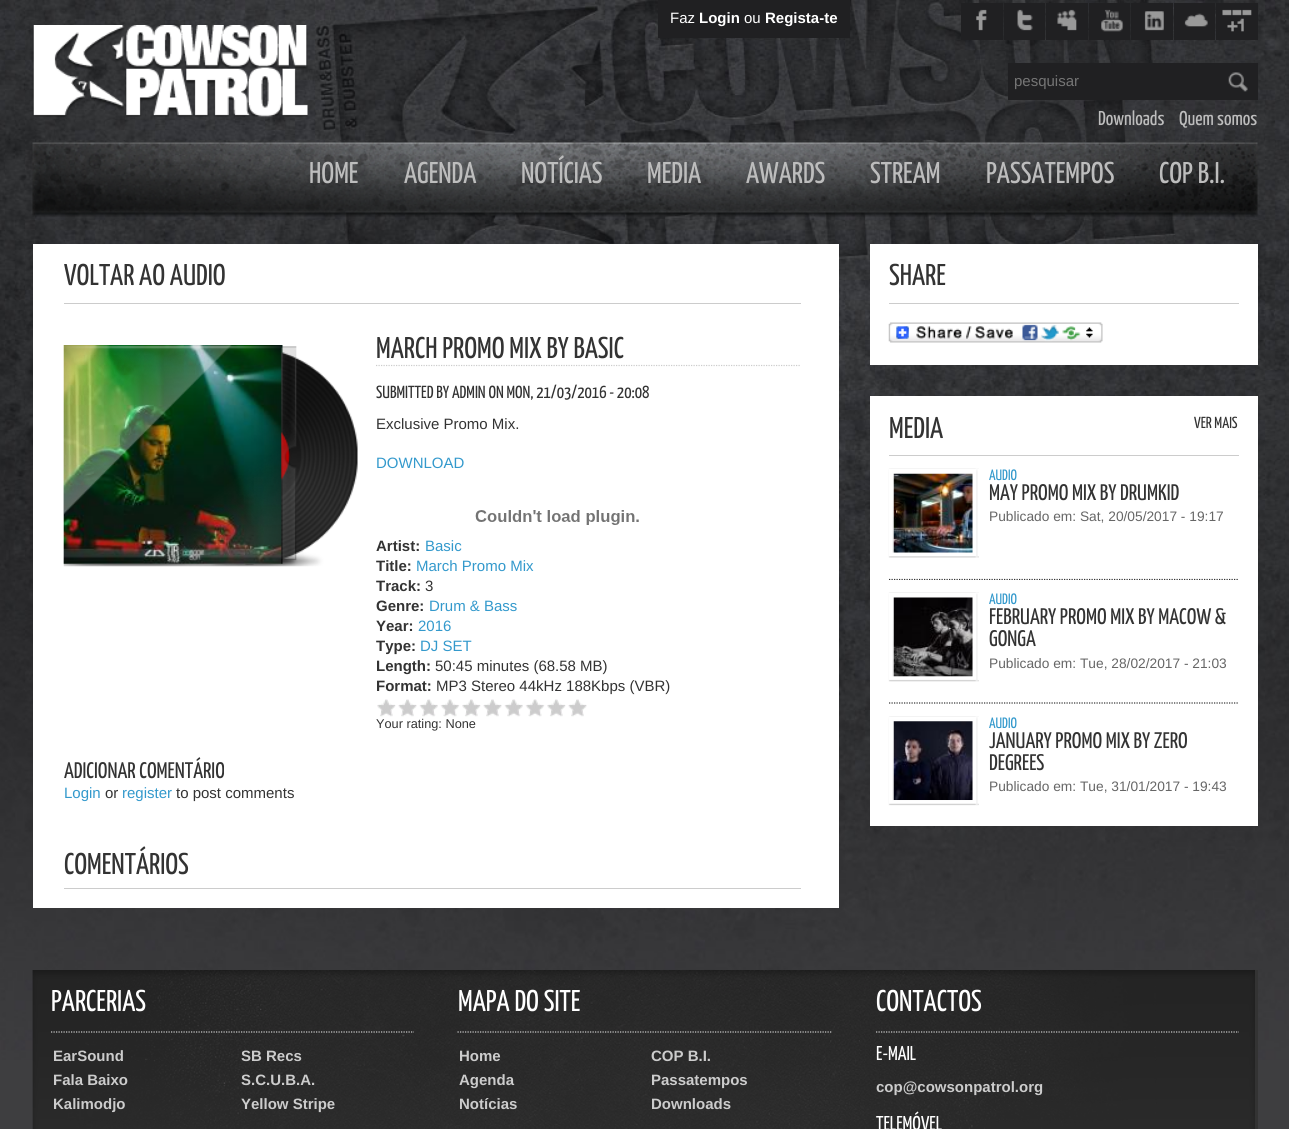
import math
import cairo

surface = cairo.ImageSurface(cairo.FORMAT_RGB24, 1289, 1129)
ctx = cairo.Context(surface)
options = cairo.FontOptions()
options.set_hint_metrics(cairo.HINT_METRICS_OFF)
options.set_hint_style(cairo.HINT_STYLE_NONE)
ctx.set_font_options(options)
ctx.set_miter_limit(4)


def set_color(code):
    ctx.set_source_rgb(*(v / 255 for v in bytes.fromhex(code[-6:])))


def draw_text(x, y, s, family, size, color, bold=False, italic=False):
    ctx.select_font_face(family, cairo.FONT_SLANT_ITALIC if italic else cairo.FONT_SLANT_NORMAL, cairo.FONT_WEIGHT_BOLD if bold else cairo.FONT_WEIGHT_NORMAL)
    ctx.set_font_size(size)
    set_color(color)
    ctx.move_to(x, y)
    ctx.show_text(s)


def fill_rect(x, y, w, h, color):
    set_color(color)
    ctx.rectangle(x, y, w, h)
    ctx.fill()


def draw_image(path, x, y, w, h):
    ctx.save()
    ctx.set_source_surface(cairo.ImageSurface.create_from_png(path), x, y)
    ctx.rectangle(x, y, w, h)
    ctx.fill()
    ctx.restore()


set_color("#3e3e40")
ctx.paint()
draw_image("assets/img1.png", 0, 0, 1289, 1060)
fill_rect(658, 0, 192, 38, "#202022")
draw_text(670, 23, "Faz", "Liberation Sans", 15, "#ffffff")
draw_text(699, 23, "Login", "Liberation Sans", 15, "#ffffff", bold=True)
draw_text(744, 23, "ou", "Liberation Sans", 15, "#ffffff")
draw_text(765, 23, "Regista-te", "Liberation Sans", 15, "#ffffff", bold=True)
fill_rect(961, 3, 42, 37, "#202022")
draw_image("assets/img2.png", 976, 9, 11, 22)
fill_rect(1004, 3, 41, 37, "#202022")
draw_image("assets/img3.png", 1017, 9, 16, 22)
fill_rect(1046, 3, 42, 37, "#202022")
draw_image("assets/img4.png", 1057, 9, 20, 22)
fill_rect(1089, 3, 41, 37, "#202022")
draw_image("assets/img5.png", 1101, 9, 23, 23)
fill_rect(1131, 3, 42, 37, "#202022")
draw_image("assets/img6.png", 1144, 11, 20, 20)
fill_rect(1174, 3, 41, 37, "#202022")
draw_image("assets/img7.png", 1184, 13, 24, 14)
fill_rect(1216, 3, 42, 37, "#202022")
draw_image("assets/img8.png", 1222, 9, 30, 23)
draw_image("assets/img9.png", 32, 25, 276, 92)
fill_rect(1008, 63, 250, 37, "#202022")
draw_text(1014, 86, "pesquisar", "Liberation Sans", 15, "#757575")
draw_image("assets/img10.png", 1228, 72, 20, 20)
draw_text(1098, 125, "Downloads", "Yanone Kaffeesatz ExtraLight", 20, "#bdbdbd")
draw_text(1179, 125, "Quem somos", "Yanone Kaffeesatz ExtraLight", 20, "#bdbdbd")
draw_image("assets/img11.png", 32, 142, 1226, 75)
draw_text(309, 183, "HOME", "Yanone Kaffeesatz ExtraLight", 30, "#bdbdbd")
draw_text(404, 183, "AGENDA", "Yanone Kaffeesatz ExtraLight", 30, "#bdbdbd")
draw_text(521, 183, "NOTÍCIAS", "Yanone Kaffeesatz ExtraLight", 30, "#bdbdbd")
draw_text(647, 183, "MEDIA", "Yanone Kaffeesatz ExtraLight", 30, "#bdbdbd")
draw_text(746, 183, "AWARDS", "Yanone Kaffeesatz ExtraLight", 30, "#bdbdbd")
draw_text(870, 183, "STREAM", "Yanone Kaffeesatz ExtraLight", 30, "#bdbdbd")
draw_text(986, 183, "PASSATEMPOS", "Yanone Kaffeesatz ExtraLight", 30, "#bdbdbd")
draw_text(1159, 183, "COP B.I.", "Yanone Kaffeesatz ExtraLight", 30, "#bdbdbd")
fill_rect(33, 244, 806, 664, "#ffffff")
fill_rect(64, 303, 737, 1, "#cccccc")
draw_text(64, 285, "VOLTAR AO AUDIO", "Yanone Kaffeesatz ExtraLight", 30, "#333333")
draw_image("assets/img12.png", 63, 345, 220, 219)
ctx.new_path()
ctx.move_to(376, 365.5)
ctx.line_to(801, 365.5)
set_color("#cccccc")
ctx.set_line_width(1.2)
ctx.set_dash([1.25, 1.25])
ctx.stroke()
draw_text(376, 358, "MARCH PROMO MIX BY BASIC", "Yanone Kaffeesatz ExtraLight", 30, "#333333")
draw_text(376, 398, "SUBMITTED BY ADMIN ON MON, 21/03/2016 - 20:08", "Yanone Kaffeesatz ExtraLight", 17.5, "#333333")
draw_text(376, 429, "Exclusive Promo Mix.", "Liberation Sans", 15, "#333333")
draw_text(376, 468, "DOWNLOAD", "Liberation Sans", 15, "#3399cc")
draw_image("assets/img13.png", 475, 510, 164, 15)
draw_text(376, 551, "Artist:", "Liberation Sans", 15, "#333333", bold=True)
draw_text(425, 551, "Basic", "Liberation Sans", 15, "#3399cc")
draw_text(376, 571, "Title:", "Liberation Sans", 15, "#333333", bold=True)
draw_text(416, 571, "March Promo Mix", "Liberation Sans", 15, "#3399cc")
draw_text(376, 591, "Track:", "Liberation Sans", 15, "#333333", bold=True)
draw_text(425, 591, "3", "Liberation Sans", 15, "#333333")
draw_text(376, 611, "Genre:", "Liberation Sans", 15, "#333333", bold=True)
draw_text(429, 611, "Drum & Bass", "Liberation Sans", 15, "#3399cc")
draw_text(376, 631, "Year:", "Liberation Sans", 15, "#333333", bold=True)
draw_text(418, 631, "2016", "Liberation Sans", 15, "#3399cc")
draw_text(376, 651, "Type:", "Liberation Sans", 15, "#333333", bold=True)
draw_text(420, 651, "DJ SET", "Liberation Sans", 15, "#3399cc")
draw_text(376, 671, "Length:", "Liberation Sans", 15, "#333333", bold=True)
draw_text(435, 671, "50:45 minutes (68.58 MB)", "Liberation Sans", 15, "#333333")
draw_text(376, 691, "Format:", "Liberation Sans", 15, "#333333", bold=True)
draw_text(436, 691, "MP3 Stereo 44kHz 188Kbps (VBR)", "Liberation Sans", 15, "#333333")
draw_image("assets/img14.png", 377, 699, 19, 18)
draw_image("assets/img15.png", 378, 700, 17, 16)
draw_image("assets/img16.png", 398, 699, 19, 18)
draw_image("assets/img17.png", 399, 700, 17, 16)
draw_image("assets/img18.png", 419, 699, 19, 18)
draw_image("assets/img19.png", 421, 700, 17, 16)
draw_image("assets/img20.png", 440, 699, 20, 18)
draw_image("assets/img21.png", 442, 700, 16, 16)
draw_image("assets/img14.png", 462, 699, 19, 18)
draw_image("assets/img15.png", 463, 700, 17, 16)
draw_image("assets/img22.png", 483, 699, 19, 18)
draw_image("assets/img23.png", 484, 700, 17, 16)
draw_image("assets/img18.png", 504, 699, 19, 18)
draw_image("assets/img19.png", 506, 700, 17, 16)
draw_image("assets/img20.png", 525, 699, 20, 18)
draw_image("assets/img21.png", 527, 700, 16, 16)
draw_image("assets/img14.png", 547, 699, 19, 18)
draw_image("assets/img15.png", 548, 700, 17, 16)
draw_image("assets/img16.png", 568, 699, 19, 18)
draw_image("assets/img17.png", 569, 700, 17, 16)
draw_text(376, 728, "Your rating: None", "Liberation Sans", 12.75, "#333333")
draw_image("assets/img24.png", 63, 345, 295, 222)
draw_text(64, 778, "ADICIONAR COMENTÁRIO", "Yanone Kaffeesatz ExtraLight", 22.5, "#333333")
draw_text(64, 798, "Login", "Liberation Sans", 15, "#3399cc")
draw_text(105, 798, "or", "Liberation Sans", 15, "#333333")
draw_text(122, 798, "register", "Liberation Sans", 15, "#3399cc")
draw_text(176, 798, "to post comments", "Liberation Sans", 15, "#333333")
fill_rect(64, 888, 737, 1, "#cccccc")
draw_text(64, 874, "COMENTÁRIOS", "Yanone Kaffeesatz ExtraLight", 30, "#333333")
fill_rect(870, 244, 388, 121, "#ffffff")
fill_rect(889, 303, 350, 1, "#cccccc")
draw_text(889, 285, "SHARE", "Yanone Kaffeesatz ExtraLight", 30, "#333333")
draw_image("assets/img25.png", 888, 322, 215, 21)
fill_rect(870, 396, 388, 430, "#ffffff")
fill_rect(889, 455, 350, 1, "#cccccc")
draw_text(889, 438, "MEDIA", "Yanone Kaffeesatz ExtraLight", 30, "#333333")
draw_text(1194, 428, "VER MAIS", "Yanone Kaffeesatz ExtraLight", 16, "#333333")
ctx.new_path()
ctx.move_to(889, 579.5)
ctx.line_to(1239, 579.5)
ctx.stroke()
draw_image("assets/img26.png", 888, 468, 91, 90)
draw_image("assets/img27.png", 893, 473, 80, 80)
draw_text(989, 480, "AUDIO", "Yanone Kaffeesatz ExtraLight", 15, "#3399cc")
draw_text(989, 500, "MAY PROMO MIX BY DRUMKID", "Yanone Kaffeesatz ExtraLight", 22.5, "#333333")
draw_text(989, 521, "Publicado em: Sat, 20/05/2017 - 19:17", "Liberation Sans", 13.75, "#666666")
fill_rect(889, 580, 349, 1, "#ffffff")
ctx.new_path()
ctx.move_to(889, 703)
ctx.line_to(1239, 703)
set_color("#333333")
ctx.stroke()
draw_image("assets/img28.png", 888, 592, 91, 90)
draw_image("assets/img29.png", 893, 597, 80, 80)
draw_text(989, 604, "AUDIO", "Yanone Kaffeesatz ExtraLight", 15, "#3399cc")
draw_text(989, 624, "FEBRUARY PROMO MIX BY MACOW &", "Yanone Kaffeesatz ExtraLight", 22.5, "#333333")
draw_text(989, 646, "GONGA", "Yanone Kaffeesatz ExtraLight", 22.5, "#333333")
draw_text(989, 668, "Publicado em: Tue, 28/02/2017 - 21:03", "Liberation Sans", 13.75, "#666666")
draw_image("assets/img30.png", 888, 716, 91, 90)
draw_image("assets/img31.png", 893, 721, 80, 79)
draw_text(989, 728, "AUDIO", "Yanone Kaffeesatz ExtraLight", 15, "#3399cc")
draw_text(989, 748, "JANUARY PROMO MIX BY ZERO", "Yanone Kaffeesatz ExtraLight", 22.5, "#333333")
draw_text(989, 770, "DEGREES", "Yanone Kaffeesatz ExtraLight", 22.5, "#333333")
draw_text(989, 791, "Publicado em: Tue, 31/01/2017 - 19:43", "Liberation Sans", 13.75, "#666666")
fill_rect(33, 970, 1225, 159, "#333333")
draw_image("assets/img32.png", 32, 970, 1223, 159)
ctx.new_path()
ctx.move_to(51, 1032)
ctx.line_to(414, 1032)
set_color("#cccccc")
ctx.stroke()
draw_text(51, 1011, "PARCERIAS", "Yanone Kaffeesatz ExtraLight", 30, "#ffffff")
draw_text(53, 1061, "EarSound", "Liberation Sans", 15, "#cccccc", bold=True)
draw_text(241, 1061, "SB Recs", "Liberation Sans", 15, "#cccccc", bold=True)
draw_text(53, 1085, "Fala Baixo", "Liberation Sans", 15, "#cccccc", bold=True)
draw_text(241, 1085, "S.C.U.B.A.", "Liberation Sans", 15, "#cccccc", bold=True)
draw_text(53, 1109, "Kalimodjo", "Liberation Sans", 15, "#cccccc", bold=True)
draw_text(241, 1109, "Yellow Stripe", "Liberation Sans", 15, "#cccccc", bold=True)
ctx.new_path()
ctx.move_to(457.5, 1032)
ctx.line_to(832.5, 1032)
ctx.stroke()
draw_text(458, 1011, "MAPA DO SITE", "Yanone Kaffeesatz ExtraLight", 30, "#ffffff")
draw_text(459, 1061, "Home", "Liberation Sans", 15, "#cccccc", bold=True)
draw_text(651, 1061, "COP B.I.", "Liberation Sans", 15, "#cccccc", bold=True)
draw_text(459, 1085, "Agenda", "Liberation Sans", 15, "#cccccc", bold=True)
draw_text(651, 1085, "Passatempos", "Liberation Sans", 15, "#cccccc", bold=True)
draw_text(459, 1109, "Notícias", "Liberation Sans", 15, "#cccccc", bold=True)
draw_text(651, 1109, "Downloads", "Liberation Sans", 15, "#cccccc", bold=True)
ctx.new_path()
ctx.move_to(876, 1032)
ctx.line_to(1239, 1032)
ctx.stroke()
draw_text(876, 1011, "CONTACTOS", "Yanone Kaffeesatz ExtraLight", 30, "#ffffff")
draw_text(876, 1060, "E-MAIL", "Yanone Kaffeesatz ExtraLight", 20, "#ffffff")
draw_text(876, 1092, "cop@cowsonpatrol.org", "Liberation Sans", 15, "#cccccc", bold=True)
draw_text(876, 1130, "TELEMÓVEL", "Yanone Kaffeesatz ExtraLight", 20, "#ffffff")
surface.write_to_png("output.png")
